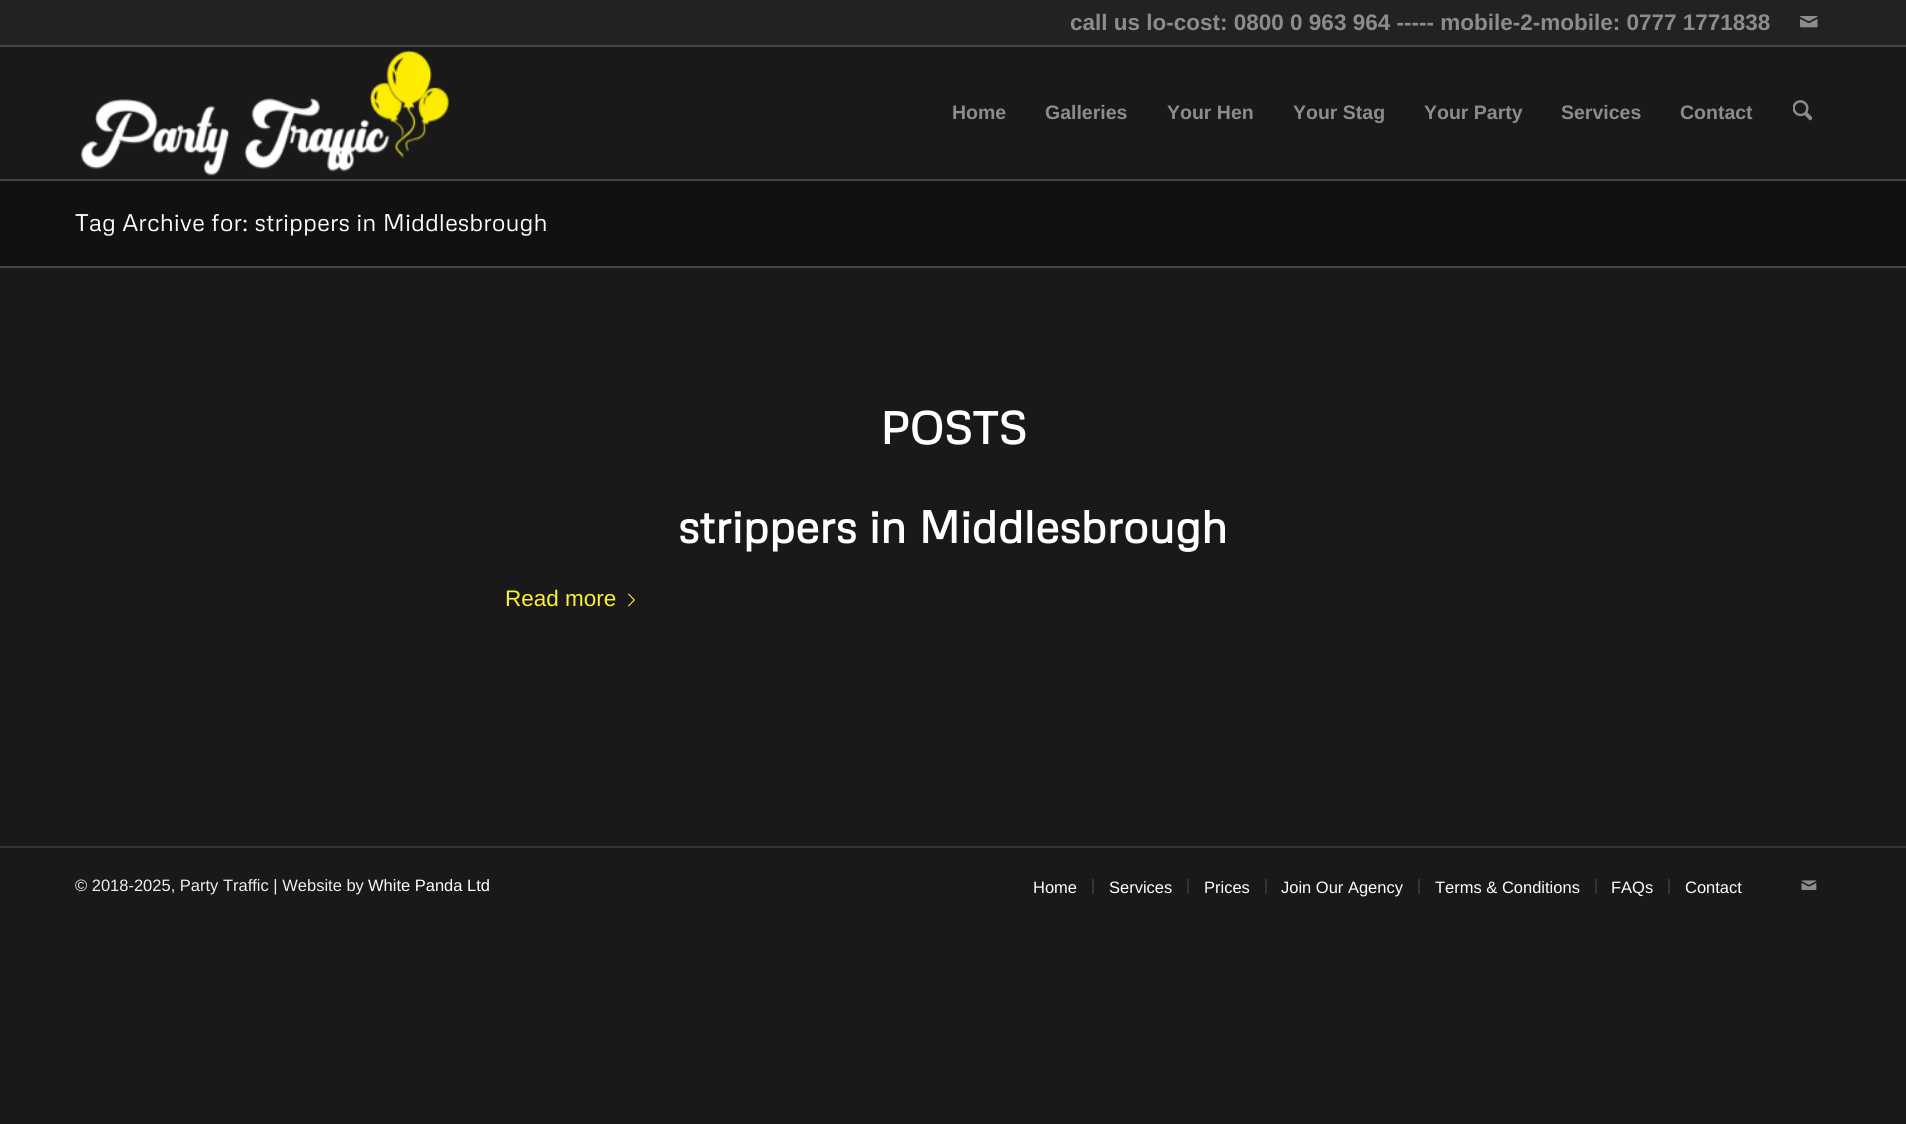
import math
import cairo

surface = cairo.ImageSurface(cairo.FORMAT_RGB24, 1906, 1124)
ctx = cairo.Context(surface)
options = cairo.FontOptions()
options.set_hint_metrics(cairo.HINT_METRICS_OFF)
options.set_hint_style(cairo.HINT_STYLE_NONE)
ctx.set_font_options(options)
ctx.set_miter_limit(4)


def set_color(code):
    ctx.set_source_rgb(*(v / 255 for v in bytes.fromhex(code[-6:])))


def draw_text(x, y, s, family, size, color, bold=False, italic=False):
    ctx.select_font_face(family, cairo.FONT_SLANT_ITALIC if italic else cairo.FONT_SLANT_NORMAL, cairo.FONT_WEIGHT_BOLD if bold else cairo.FONT_WEIGHT_NORMAL)
    ctx.set_font_size(size)
    set_color(color)
    ctx.move_to(x, y)
    ctx.show_text(s)


def fill_rect(x, y, w, h, color):
    set_color(color)
    ctx.rectangle(x, y, w, h)
    ctx.fill()


def draw_image(path, x, y, w, h):
    ctx.save()
    ctx.set_source_surface(cairo.ImageSurface.create_from_png(path), x, y)
    ctx.rectangle(x, y, w, h)
    ctx.fill()
    ctx.restore()


set_color("#191919")
ctx.paint()
fill_rect(0, 0, 1906, 45, "#222222")
fill_rect(0, 45, 1906, 2, "#444444")
draw_text(1070, 30, "call us lo-cost: 0800 0 963 964 ----- mobile-2-mobile: 0777 1771838", "Liberation Sans", 22.5, "#8c8c8c", bold=True)
draw_image("assets/img1.png", 1800, 16, 18, 12)
fill_rect(0, 179, 1906, 2, "#444444")
draw_image("assets/img2.png", 80, 50, 370, 126)
draw_text(952, 119, "Home", "Liberation Sans", 19.5, "#8c8c8c", bold=True)
draw_text(1045, 119, "Galleries", "Liberation Sans", 19.5, "#8c8c8c", bold=True)
draw_text(1167, 119, "Your Hen", "Liberation Sans", 19.5, "#8c8c8c", bold=True)
draw_text(1293, 119, "Your Stag", "Liberation Sans", 19.5, "#8c8c8c", bold=True)
draw_text(1424, 119, "Your Party", "Liberation Sans", 19.5, "#8c8c8c", bold=True)
draw_text(1561, 119, "Services", "Liberation Sans", 19.5, "#8c8c8c", bold=True)
draw_text(1680, 119, "Contact", "Liberation Sans", 19.5, "#8c8c8c", bold=True)
draw_image("assets/img3.png", 1793, 100, 19, 21)
fill_rect(0, 181, 1906, 85, "#111111")
draw_text(75, 231, "Tag Archive for: strippers in Middlesbrough", "Metrophobic", 24, "#ffffff")
fill_rect(0, 266, 1906, 2, "#444444")
draw_text(880, 444, "POSTS", "Metrophobic", 45, "#ffffff", bold=True)
draw_text(678, 543, "strippers in Middlesbrough", "Metrophobic", 45, "#ffffff", bold=True)
draw_text(505, 606, "Read more", "Liberation Sans", 22.5, "#ffee38")
draw_image("assets/img4.png", 628, 593, 7, 14)
fill_rect(0, 846, 1906, 2, "#333333")
draw_text(75, 891, "© 2018-2025, Party Traffic | Website by", "Liberation Sans", 16.5, "#eeeeee")
draw_text(368, 891, "White Panda Ltd", "Liberation Sans", 16.5, "#ffffff")
draw_text(1033, 893, "Home", "Liberation Sans", 16.5, "#ffffff")
fill_rect(1092, 879, 2, 15, "#333333")
draw_text(1109, 893, "Services", "Liberation Sans", 16.5, "#ffffff")
fill_rect(1187, 879, 2, 15, "#333333")
draw_text(1204, 893, "Prices", "Liberation Sans", 16.5, "#ffffff")
fill_rect(1265, 879, 2, 15, "#333333")
draw_text(1281, 893, "Join Our Agency", "Liberation Sans", 16.5, "#ffffff")
fill_rect(1418, 879, 2, 15, "#333333")
draw_text(1435, 893, "Terms & Conditions", "Liberation Sans", 16.5, "#ffffff")
fill_rect(1595, 879, 2, 15, "#333333")
draw_text(1611, 893, "FAQs", "Liberation Sans", 16.5, "#ffffff")
fill_rect(1668, 879, 2, 15, "#333333")
draw_text(1685, 893, "Contact", "Liberation Sans", 16.5, "#ffffff")
draw_image("assets/img5.png", 1801, 880, 16, 10)
surface.write_to_png("output.png")
